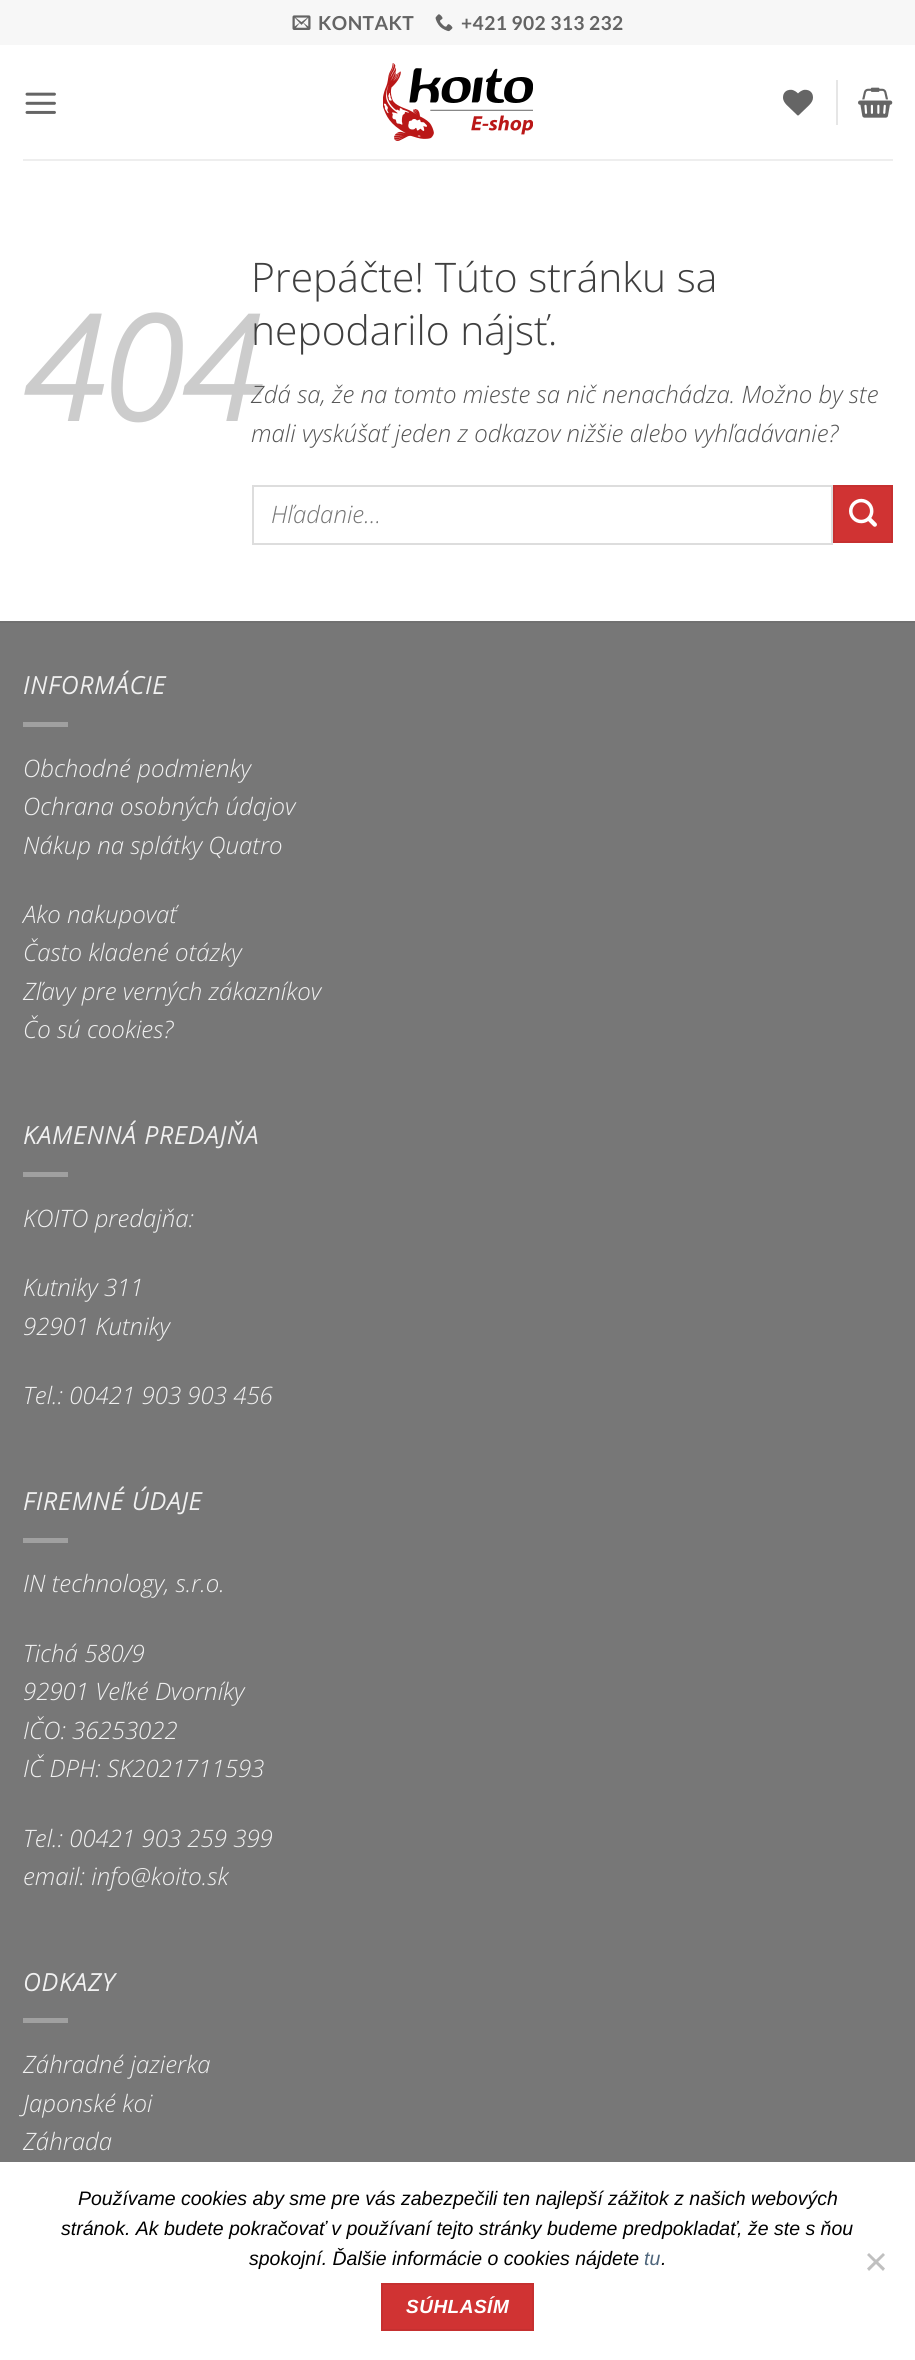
import math
import cairo

surface = cairo.ImageSurface(cairo.FORMAT_RGB24, 915, 2360)
ctx = cairo.Context(surface)
options = cairo.FontOptions()
options.set_hint_metrics(cairo.HINT_METRICS_OFF)
options.set_hint_style(cairo.HINT_STYLE_NONE)
ctx.set_font_options(options)
ctx.set_miter_limit(4)


def set_color(code):
    ctx.set_source_rgb(*(v / 255 for v in bytes.fromhex(code[-6:])))


def draw_text(x, y, s, family, size, color, bold=False, italic=False):
    ctx.select_font_face(family, cairo.FONT_SLANT_ITALIC if italic else cairo.FONT_SLANT_NORMAL, cairo.FONT_WEIGHT_BOLD if bold else cairo.FONT_WEIGHT_NORMAL)
    ctx.set_font_size(size)
    set_color(color)
    ctx.move_to(x, y)
    ctx.show_text(s)


def draw_spaced(x, y, s, letter, word):
    ctx.move_to(x, y)
    for ch in s:
        ctx.show_text(ch)
        ctx.rel_move_to(letter + word * (ch == ' '), 0)


def fill_rect(x, y, w, h, color):
    set_color(color)
    ctx.rectangle(x, y, w, h)
    ctx.fill()


def draw_image(path, x, y, w, h):
    ctx.save()
    ctx.set_source_surface(cairo.ImageSurface.create_from_png(path), x, y)
    ctx.rectangle(x, y, w, h)
    ctx.fill()
    ctx.restore()


set_color("#ffffff")
ctx.paint()
fill_rect(0, 0, 915, 45, "#f7f7f7")
draw_image("assets/img1.png", 292, 15, 19, 15)
ctx.select_font_face("Lato", cairo.FONT_SLANT_NORMAL, cairo.FONT_WEIGHT_BOLD)
ctx.set_font_size(19.25)
set_color("#646464")
draw_spaced(318, 30, "KONTAKT", 0.4, 0)
draw_image("assets/img2.png", 435, 14, 18, 18)
draw_spaced(461, 30, "+421 902 313 232", 0.4, 0)
draw_image("assets/img3.png", 25, 92, 31, 22)
draw_image("assets/img4.png", 383, 63, 150, 78)
draw_image("assets/img5.png", 783, 89, 30, 27)
fill_rect(836, 80, 2, 45, "#e6e6e6")
draw_image("assets/img6.png", 858, 87, 35, 31)
fill_rect(23, 159, 870, 2, "#eeeeee")
draw_text(23, 421, "404", "Open Sans", 144, "#cccccc", bold=True, italic=True)
draw_text(251, 292, "Prepáčte! Túto stránku sa", "Open Sans Light", 40.75, "#3f3f3f")
draw_text(251, 345, "nepodarilo nájsť.", "Open Sans Light", 40.75, "#3f3f3f")
draw_text(251, 403, "Zdá sa, že na tomto mieste sa nič nenachádza. Možno by ste", "Open Sans Light", 24, "#545454", italic=True)
draw_text(251, 442, "mali vyskúšať jeden z odkazov nižšie alebo vyhľadávanie?", "Open Sans Light", 24, "#545454", italic=True)
ctx.rectangle(253, 486, 579, 58)
set_color("#dddddd")
ctx.stroke()
draw_text(271, 523, "Hľadanie…", "Open Sans Light", 24, "#757575", italic=True)
set_color("#d03333")
ctx.rectangle(834, 486, 58, 56)
ctx.fill_preserve()
set_color("#c63030")
ctx.stroke()
draw_image("assets/img7.png", 849, 498, 28, 29)
fill_rect(0, 623, 915, 1539, "#777777")
fill_rect(0, 621, 915, 2, "#717171")
ctx.select_font_face("Open Sans", cairo.FONT_SLANT_ITALIC, cairo.FONT_WEIGHT_BOLD)
set_color("#f1f1f1")
draw_spaced(23, 694, "INFORMÁCIE", 1.25, 0)
fill_rect(23, 722, 45, 5, "#a0a0a0")
draw_text(23, 777, "Obchodné podmienky", "Open Sans Light", 24, "#f1f1f1", italic=True)
draw_text(23, 815, "Ochrana osobných údajov", "Open Sans Light", 24, "#f1f1f1", italic=True)
draw_text(23, 854, "Nákup na splátky Quatro", "Open Sans Light", 24, "#f1f1f1", italic=True)
draw_text(23, 923, "Ako nakupovať", "Open Sans Light", 24, "#f1f1f1", italic=True)
draw_text(23, 961, "Často kladené otázky", "Open Sans Light", 24, "#f1f1f1", italic=True)
draw_text(23, 1000, "Zľavy pre verných zákazníkov", "Open Sans Light", 24, "#f1f1f1", italic=True)
draw_text(23, 1038, "Čo sú cookies?", "Open Sans Light", 24, "#f1f1f1", italic=True)
ctx.select_font_face("Open Sans", cairo.FONT_SLANT_ITALIC, cairo.FONT_WEIGHT_BOLD)
draw_spaced(23, 1144, "KAMENNÁ PREDAJŇA", 1.25, 0)
fill_rect(23, 1172, 45, 5, "#a0a0a0")
draw_text(23, 1227, "KOITO predajňa:", "Open Sans Light", 24, "#f1f1f1", italic=True)
draw_text(23, 1296, "Kutniky 311", "Open Sans Light", 24, "#f1f1f1", italic=True)
draw_text(23, 1335, "92901 Kutniky", "Open Sans Light", 24, "#f1f1f1", italic=True)
draw_text(23, 1404, "Tel.: 00421 903 903 456", "Open Sans Light", 24, "#f1f1f1", italic=True)
ctx.select_font_face("Open Sans", cairo.FONT_SLANT_ITALIC, cairo.FONT_WEIGHT_BOLD)
draw_spaced(23, 1510, "FIREMNÉ ÚDAJE", 1.25, 0)
fill_rect(23, 1538, 45, 5, "#a0a0a0")
draw_text(23, 1592, "IN technology, s.r.o.", "Open Sans Light", 24, "#f1f1f1", italic=True)
draw_text(23, 1662, "Tichá 580/9", "Open Sans Light", 24, "#f1f1f1", italic=True)
draw_text(23, 1700, "92901 Veľké Dvorníky", "Open Sans Light", 24, "#f1f1f1", italic=True)
draw_text(23, 1739, "IČO: 36253022", "Open Sans Light", 24, "#f1f1f1", italic=True)
draw_text(23, 1777, "IČ DPH: SK2021711593", "Open Sans Light", 24, "#f1f1f1", italic=True)
draw_text(23, 1847, "Tel.: 00421 903 259 399", "Open Sans Light", 24, "#f1f1f1", italic=True)
draw_text(23, 1885, "email: info@koito.sk", "Open Sans Light", 24, "#f1f1f1", italic=True)
ctx.select_font_face("Open Sans", cairo.FONT_SLANT_ITALIC, cairo.FONT_WEIGHT_BOLD)
draw_spaced(23, 1991, "ODKAZY", 1.25, 0)
fill_rect(23, 2018, 45, 5, "#a0a0a0")
draw_text(23, 2073, "Záhradné jazierka", "Open Sans Light", 24, "#f1f1f1", italic=True)
draw_text(23, 2112, "Japonské koi", "Open Sans Light", 24, "#f1f1f1", italic=True)
draw_text(23, 2150, "Záhrada", "Open Sans Light", 24, "#f1f1f1", italic=True)
draw_text(78, 2205, "Používame cookies aby sme pre vás zabezpečili ten najlepší zážitok z našich webových", "Liberation Sans", 19.5, "#000000", italic=True)
draw_text(61, 2235, "stránok. Ak budete pokračovať v používaní tejto stránky budeme predpokladať, že ste s ňou", "Liberation Sans", 19.5, "#000000", italic=True)
draw_text(249, 2265, "spokojní. Ďalšie informácie o cookies nájdete", "Liberation Sans", 19.5, "#000000", italic=True)
draw_text(644, 2265, "tu", "Liberation Sans", 19.5, "#4e657b", italic=True)
draw_text(661, 2265, ".", "Liberation Sans", 19.5, "#000000", italic=True)
set_color("#c0c0c0")
ctx.new_path()
ctx.move_to(883, 2253)
ctx.line_to(885, 2255)
ctx.line_to(869, 2271)
ctx.line_to(867, 2268.5)
ctx.close_path()
ctx.fill()
ctx.new_path()
ctx.move_to(867, 2255)
ctx.line_to(869, 2253)
ctx.line_to(885, 2268.5)
ctx.line_to(883, 2271)
ctx.close_path()
ctx.fill()
set_color("#d03333")
ctx.rectangle(382, 2284, 151, 46)
ctx.fill_preserve()
set_color("#c63030")
ctx.stroke()
ctx.select_font_face("Liberation Sans", cairo.FONT_SLANT_ITALIC, cairo.FONT_WEIGHT_BOLD)
ctx.set_font_size(19)
set_color("#ffffff")
draw_spaced(406, 2313, "SÚHLASÍM", 0.5, 0)
surface.write_to_png("output.png")
